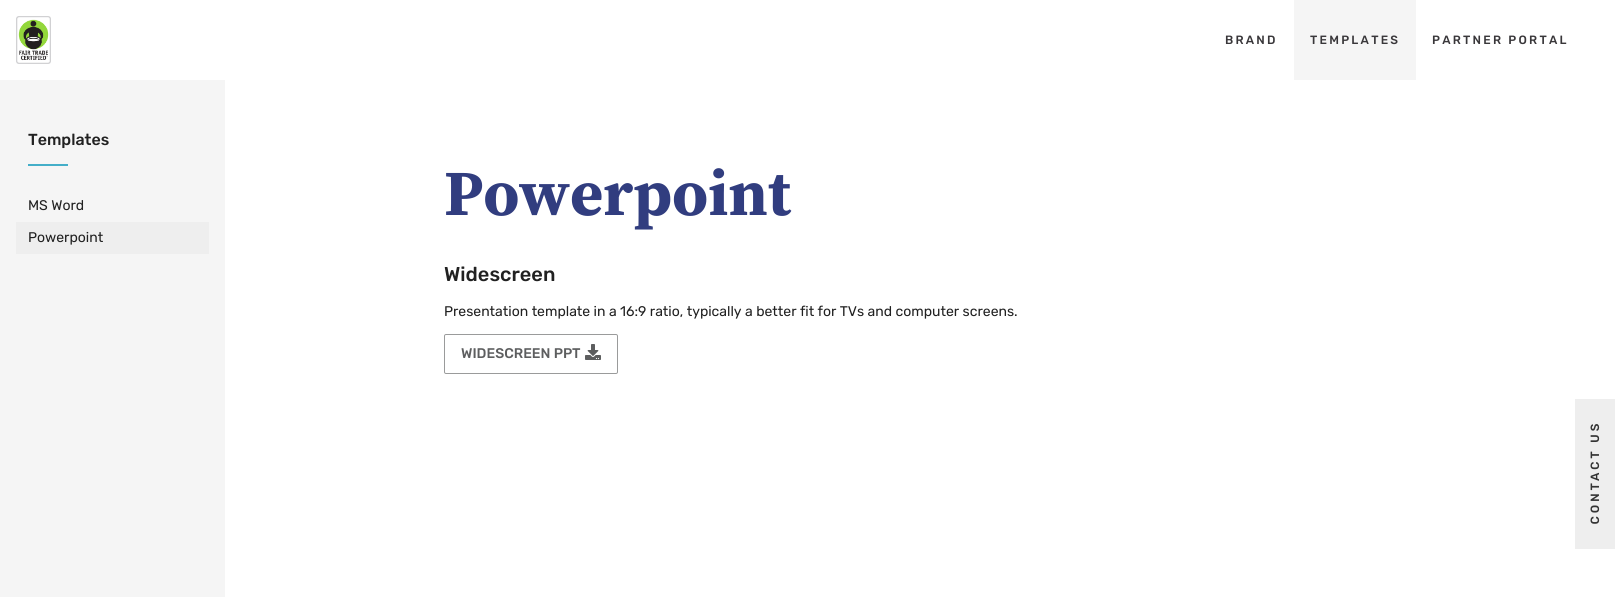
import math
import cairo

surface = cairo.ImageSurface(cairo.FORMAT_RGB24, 1615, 597)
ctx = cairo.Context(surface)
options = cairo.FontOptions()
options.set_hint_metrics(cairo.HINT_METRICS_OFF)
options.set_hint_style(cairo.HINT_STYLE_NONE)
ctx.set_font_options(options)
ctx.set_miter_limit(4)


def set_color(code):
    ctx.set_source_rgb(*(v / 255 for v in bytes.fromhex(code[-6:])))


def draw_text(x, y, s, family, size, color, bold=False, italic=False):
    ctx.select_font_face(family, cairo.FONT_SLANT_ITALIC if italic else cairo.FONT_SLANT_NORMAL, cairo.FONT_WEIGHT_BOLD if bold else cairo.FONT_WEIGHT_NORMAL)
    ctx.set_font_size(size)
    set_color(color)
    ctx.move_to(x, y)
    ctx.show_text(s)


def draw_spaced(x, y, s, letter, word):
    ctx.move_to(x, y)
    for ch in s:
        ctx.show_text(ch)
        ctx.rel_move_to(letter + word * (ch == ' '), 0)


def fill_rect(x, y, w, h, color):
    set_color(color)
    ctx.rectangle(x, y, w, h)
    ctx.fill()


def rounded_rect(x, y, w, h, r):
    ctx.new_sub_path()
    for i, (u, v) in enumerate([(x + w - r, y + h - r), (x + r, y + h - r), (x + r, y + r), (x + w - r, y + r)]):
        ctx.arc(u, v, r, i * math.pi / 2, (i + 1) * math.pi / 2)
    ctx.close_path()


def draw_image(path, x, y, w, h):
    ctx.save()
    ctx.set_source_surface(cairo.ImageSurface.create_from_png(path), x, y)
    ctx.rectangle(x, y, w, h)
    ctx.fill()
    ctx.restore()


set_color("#ffffff")
ctx.paint()
draw_image("assets/img1.png", 16, 16, 35, 48)
ctx.select_font_face("Rubik Medium")
ctx.set_font_size(12)
set_color("#39373a")
draw_spaced(1225, 44, "BRAND", 2.25, 0)
fill_rect(1294, 0, 122, 80, "#f5f5f5")
set_color("#39373a")
draw_spaced(1310, 44, "TEMPLATES", 2.25, 0)
draw_spaced(1432, 44, "PARTNER PORTAL", 2.25, 0)
draw_image("assets/img2.png", 1575, 399, 40, 150)
fill_rect(0, 80, 225, 517, "#f5f5f5")
draw_text(28, 145, "Templates", "Rubik Medium", 16, "#212121")
fill_rect(28, 164, 40, 2, "#44aec8")
draw_text(28, 210, "MS Word", "Rubik", 14, "#212121")
fill_rect(16, 222, 193, 32, "#eeeeee")
draw_text(28, 242, "Powerpoint", "Rubik", 14, "#212121")
draw_text(444, 215, "Powerpoint", "Source Serif Pro", 64, "#313d7f", bold=True)
draw_text(444, 281, "Widescreen", "Rubik Medium", 20, "#212121")
draw_text(444, 316, "Presentation template in a 16:9 ratio, typically a better fit for TVs and computer screens.", "Rubik", 14, "#212121")
rounded_rect(444.5, 334.5, 173, 39, 1.5)
set_color("#9a9b9b")
ctx.set_line_width(1)
ctx.stroke()
draw_text(461, 358, "WIDESCREEN PPT", "Rubik Medium", 14, "#5d5e5f")
draw_image("assets/img3.png", 585, 344, 16, 16)
surface.write_to_png("output.png")
